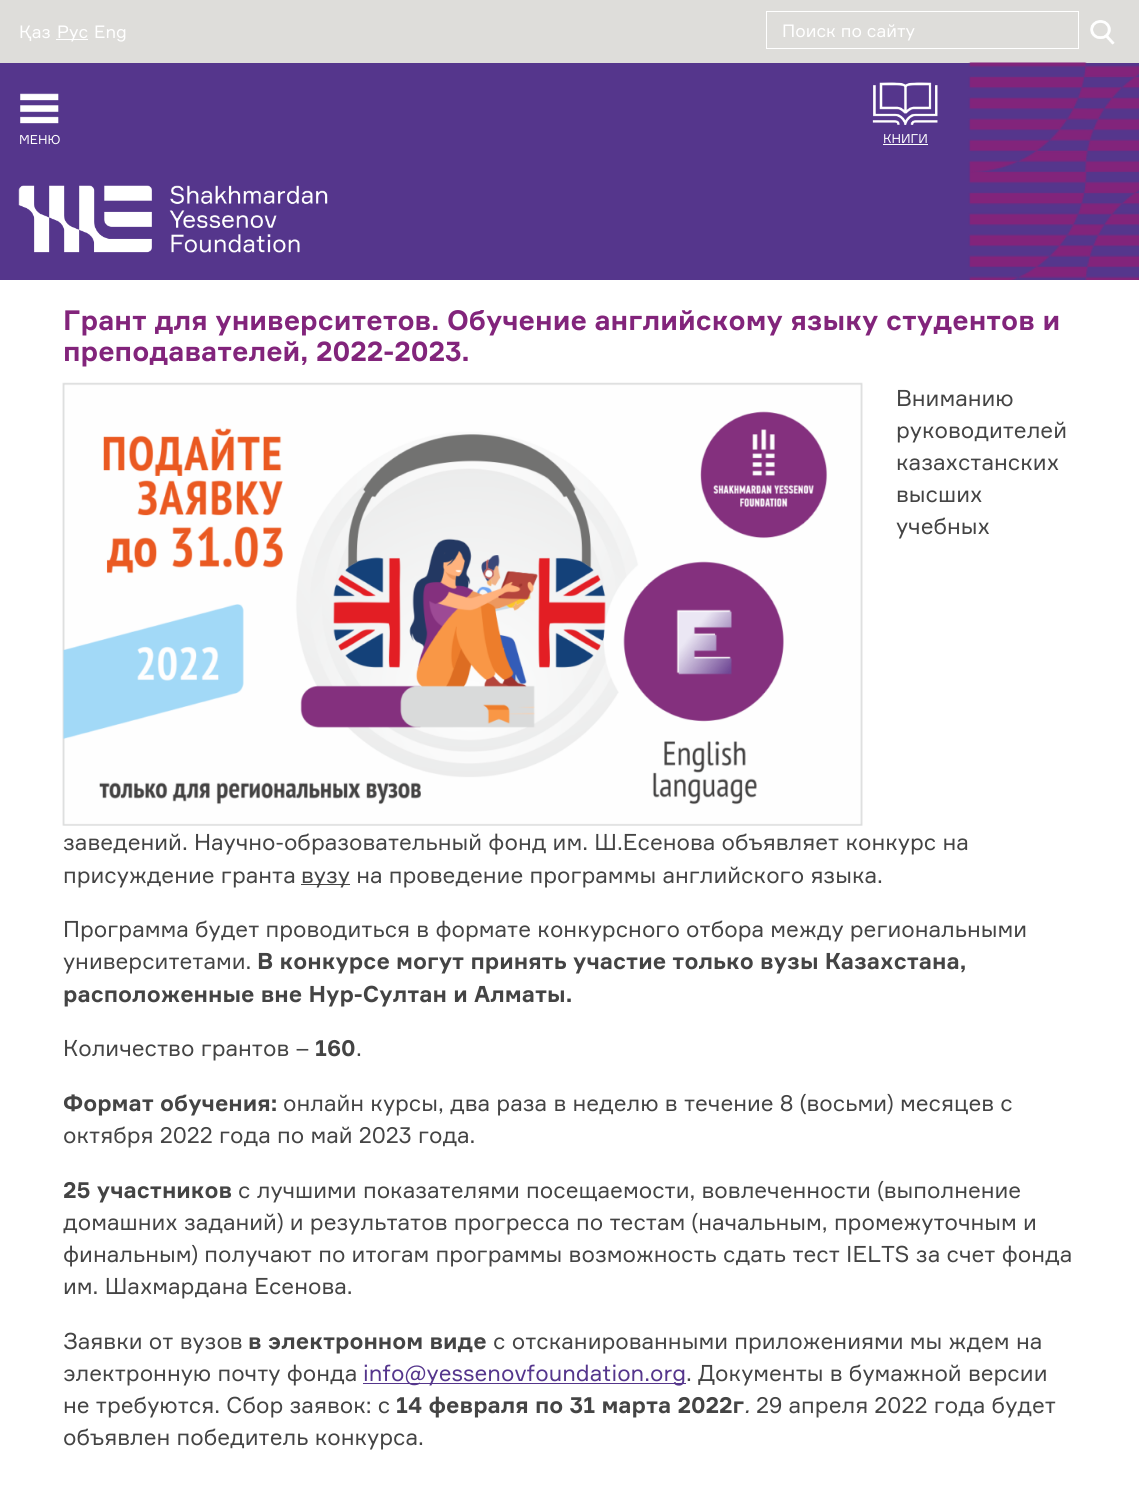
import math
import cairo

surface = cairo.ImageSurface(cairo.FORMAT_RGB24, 1139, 1491)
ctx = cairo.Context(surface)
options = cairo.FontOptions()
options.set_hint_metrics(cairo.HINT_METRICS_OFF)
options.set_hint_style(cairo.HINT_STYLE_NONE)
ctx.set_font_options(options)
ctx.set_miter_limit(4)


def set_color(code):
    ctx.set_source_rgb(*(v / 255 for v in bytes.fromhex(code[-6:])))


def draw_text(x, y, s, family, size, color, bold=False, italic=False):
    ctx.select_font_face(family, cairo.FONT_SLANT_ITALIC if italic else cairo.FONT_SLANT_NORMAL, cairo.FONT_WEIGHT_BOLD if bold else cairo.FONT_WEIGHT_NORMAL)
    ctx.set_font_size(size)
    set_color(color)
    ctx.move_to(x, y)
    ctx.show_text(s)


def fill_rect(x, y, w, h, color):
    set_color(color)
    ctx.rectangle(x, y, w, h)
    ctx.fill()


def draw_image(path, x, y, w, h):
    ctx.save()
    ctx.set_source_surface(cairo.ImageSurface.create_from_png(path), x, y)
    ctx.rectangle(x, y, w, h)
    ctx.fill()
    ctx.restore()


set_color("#ffffff")
ctx.paint()
fill_rect(0, 0, 1139, 63, "#deddda")
draw_text(19, 38, "Қаз", "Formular", 17.5, "#ffffff")
fill_rect(56, 39, 32, 1, "#ffffff")
draw_text(57, 38, "Рус", "Formular", 17.5, "#ffffff")
draw_text(94, 38, "Eng", "Formular", 17.5, "#ffffff")
ctx.rectangle(766.5, 11.5, 312, 37)
ctx.set_line_width(1)
ctx.stroke()
draw_text(782, 37, "Поиск по сайту", "Formular", 17.5, "#ffffff")
draw_image("assets/img1.png", 1090, 20, 25, 25)
fill_rect(0, 63, 1139, 217, "#55368c")
draw_image("assets/img2.png", 20, 93, 39, 31)
draw_text(19, 144, "МЕНЮ", "Formular", 12.5, "#ffffff")
draw_image("assets/img3.png", 872, 82, 66, 43)
draw_text(883, 143, "КНИГИ", "Formular", 12.5, "#ffffff")
fill_rect(883, 144, 45, 1, "#ffffff")
draw_image("assets/img4.png", 18, 185, 310, 68)
draw_image("assets/img5.png", 968, 62, 171, 218)
draw_text(63, 330, "Грант для университетов. Обучение английскому языку студентов и", "Formular", 27.5, "#82247b", bold=True)
draw_text(63, 361, "преподавателей, 2022-2023.", "Formular", 27.5, "#82247b", bold=True)
draw_image("assets/img6.png", 62, 382, 801, 444)
draw_text(896, 406, "Вниманию", "Formular", 22.5, "#444444")
draw_text(896, 438, "руководителей", "Formular", 22.5, "#444444")
draw_text(896, 470, "казахстанских", "Formular", 22.5, "#444444")
draw_text(896, 502, "высших", "Formular", 22.5, "#444444")
draw_text(896, 534, "учебных", "Formular", 22.5, "#444444")
draw_text(63, 850, "заведений. Научно-образовательный фонд им. Ш.Есенова объявляет конкурс на", "Formular", 22.5, "#444444")
draw_text(63, 883, "присуждение гранта", "Formular", 22.5, "#444444")
fill_rect(301, 884, 49, 1, "#444444")
draw_text(301, 883, "вузу на проведение программы английского языка.", "Formular", 22.5, "#444444")
draw_text(63, 937, "Программа будет проводиться в формате конкурсного отбора между региональными", "Formular", 22.5, "#444444")
draw_text(63, 969, "университетами.", "Formular", 22.5, "#444444")
draw_text(257, 969, "В конкурсе могут принять участие только вузы Казахстана,", "Formular", 22.5, "#444444", bold=True)
draw_text(63, 1002, "расположенные вне Нур-Султан и Алматы.", "Formular", 22.5, "#444444", bold=True)
draw_text(63, 1056, "Количество грантов –", "Formular", 22.5, "#444444")
draw_text(315, 1056, "160", "Formular", 22.5, "#444444", bold=True)
draw_text(356, 1056, ".", "Formular", 22.5, "#444444")
draw_text(63, 1111, "Формат обучения:", "Formular", 22.5, "#444444", bold=True)
draw_text(283, 1111, "онлайн курсы, два раза в неделю в течение 8 (восьми) месяцев с", "Formular", 22.5, "#444444")
draw_text(63, 1143, "октября 2022 года по май 2023 года.", "Formular", 22.5, "#444444")
draw_text(63, 1198, "25 участников", "Formular", 22.5, "#444444", bold=True)
draw_text(238, 1198, "с лучшими показателями посещаемости, вовлеченности (выполнение", "Formular", 22.5, "#444444")
draw_text(63, 1230, "домашних заданий) и результатов прогресса по тестам (начальным, промежуточным и", "Formular", 22.5, "#444444")
draw_text(63, 1262, "финальным) получают по итогам программы возможность сдать тест IELTS за счет фонда", "Formular", 22.5, "#444444")
draw_text(63, 1294, "им. Шахмардана Есенова.", "Formular", 22.5, "#444444")
draw_text(63, 1349, "Заявки от вузов", "Formular", 22.5, "#444444")
draw_text(248, 1349, "в электронном виде", "Formular", 22.5, "#444444", bold=True)
draw_text(493, 1349, "с отсканированными приложениями мы ждем на", "Formular", 22.5, "#444444")
draw_text(63, 1381, "электронную почту фонда", "Formular", 22.5, "#444444")
fill_rect(363, 1383, 323, 1, "#55368c")
draw_text(363, 1381, "info@yessenovfoundation.org", "Formular", 22.5, "#55368c")
draw_text(686, 1381, ". Документы в бумажной версии", "Formular", 22.5, "#444444")
draw_text(63, 1413, "не требуются. Сбор заявок: c", "Formular", 22.5, "#444444")
draw_text(396, 1413, "14 февраля по 31 марта 2022г", "Formular", 22.5, "#444444", bold=True)
draw_text(744, 1413, ".", "Formular", 22.5, "#444444", italic=True)
draw_text(756, 1413, "29 апреля 2022 года будет", "Formular", 22.5, "#444444")
draw_text(63, 1445, "объявлен победитель конкурса.", "Formular", 22.5, "#444444")
surface.write_to_png("output.png")
